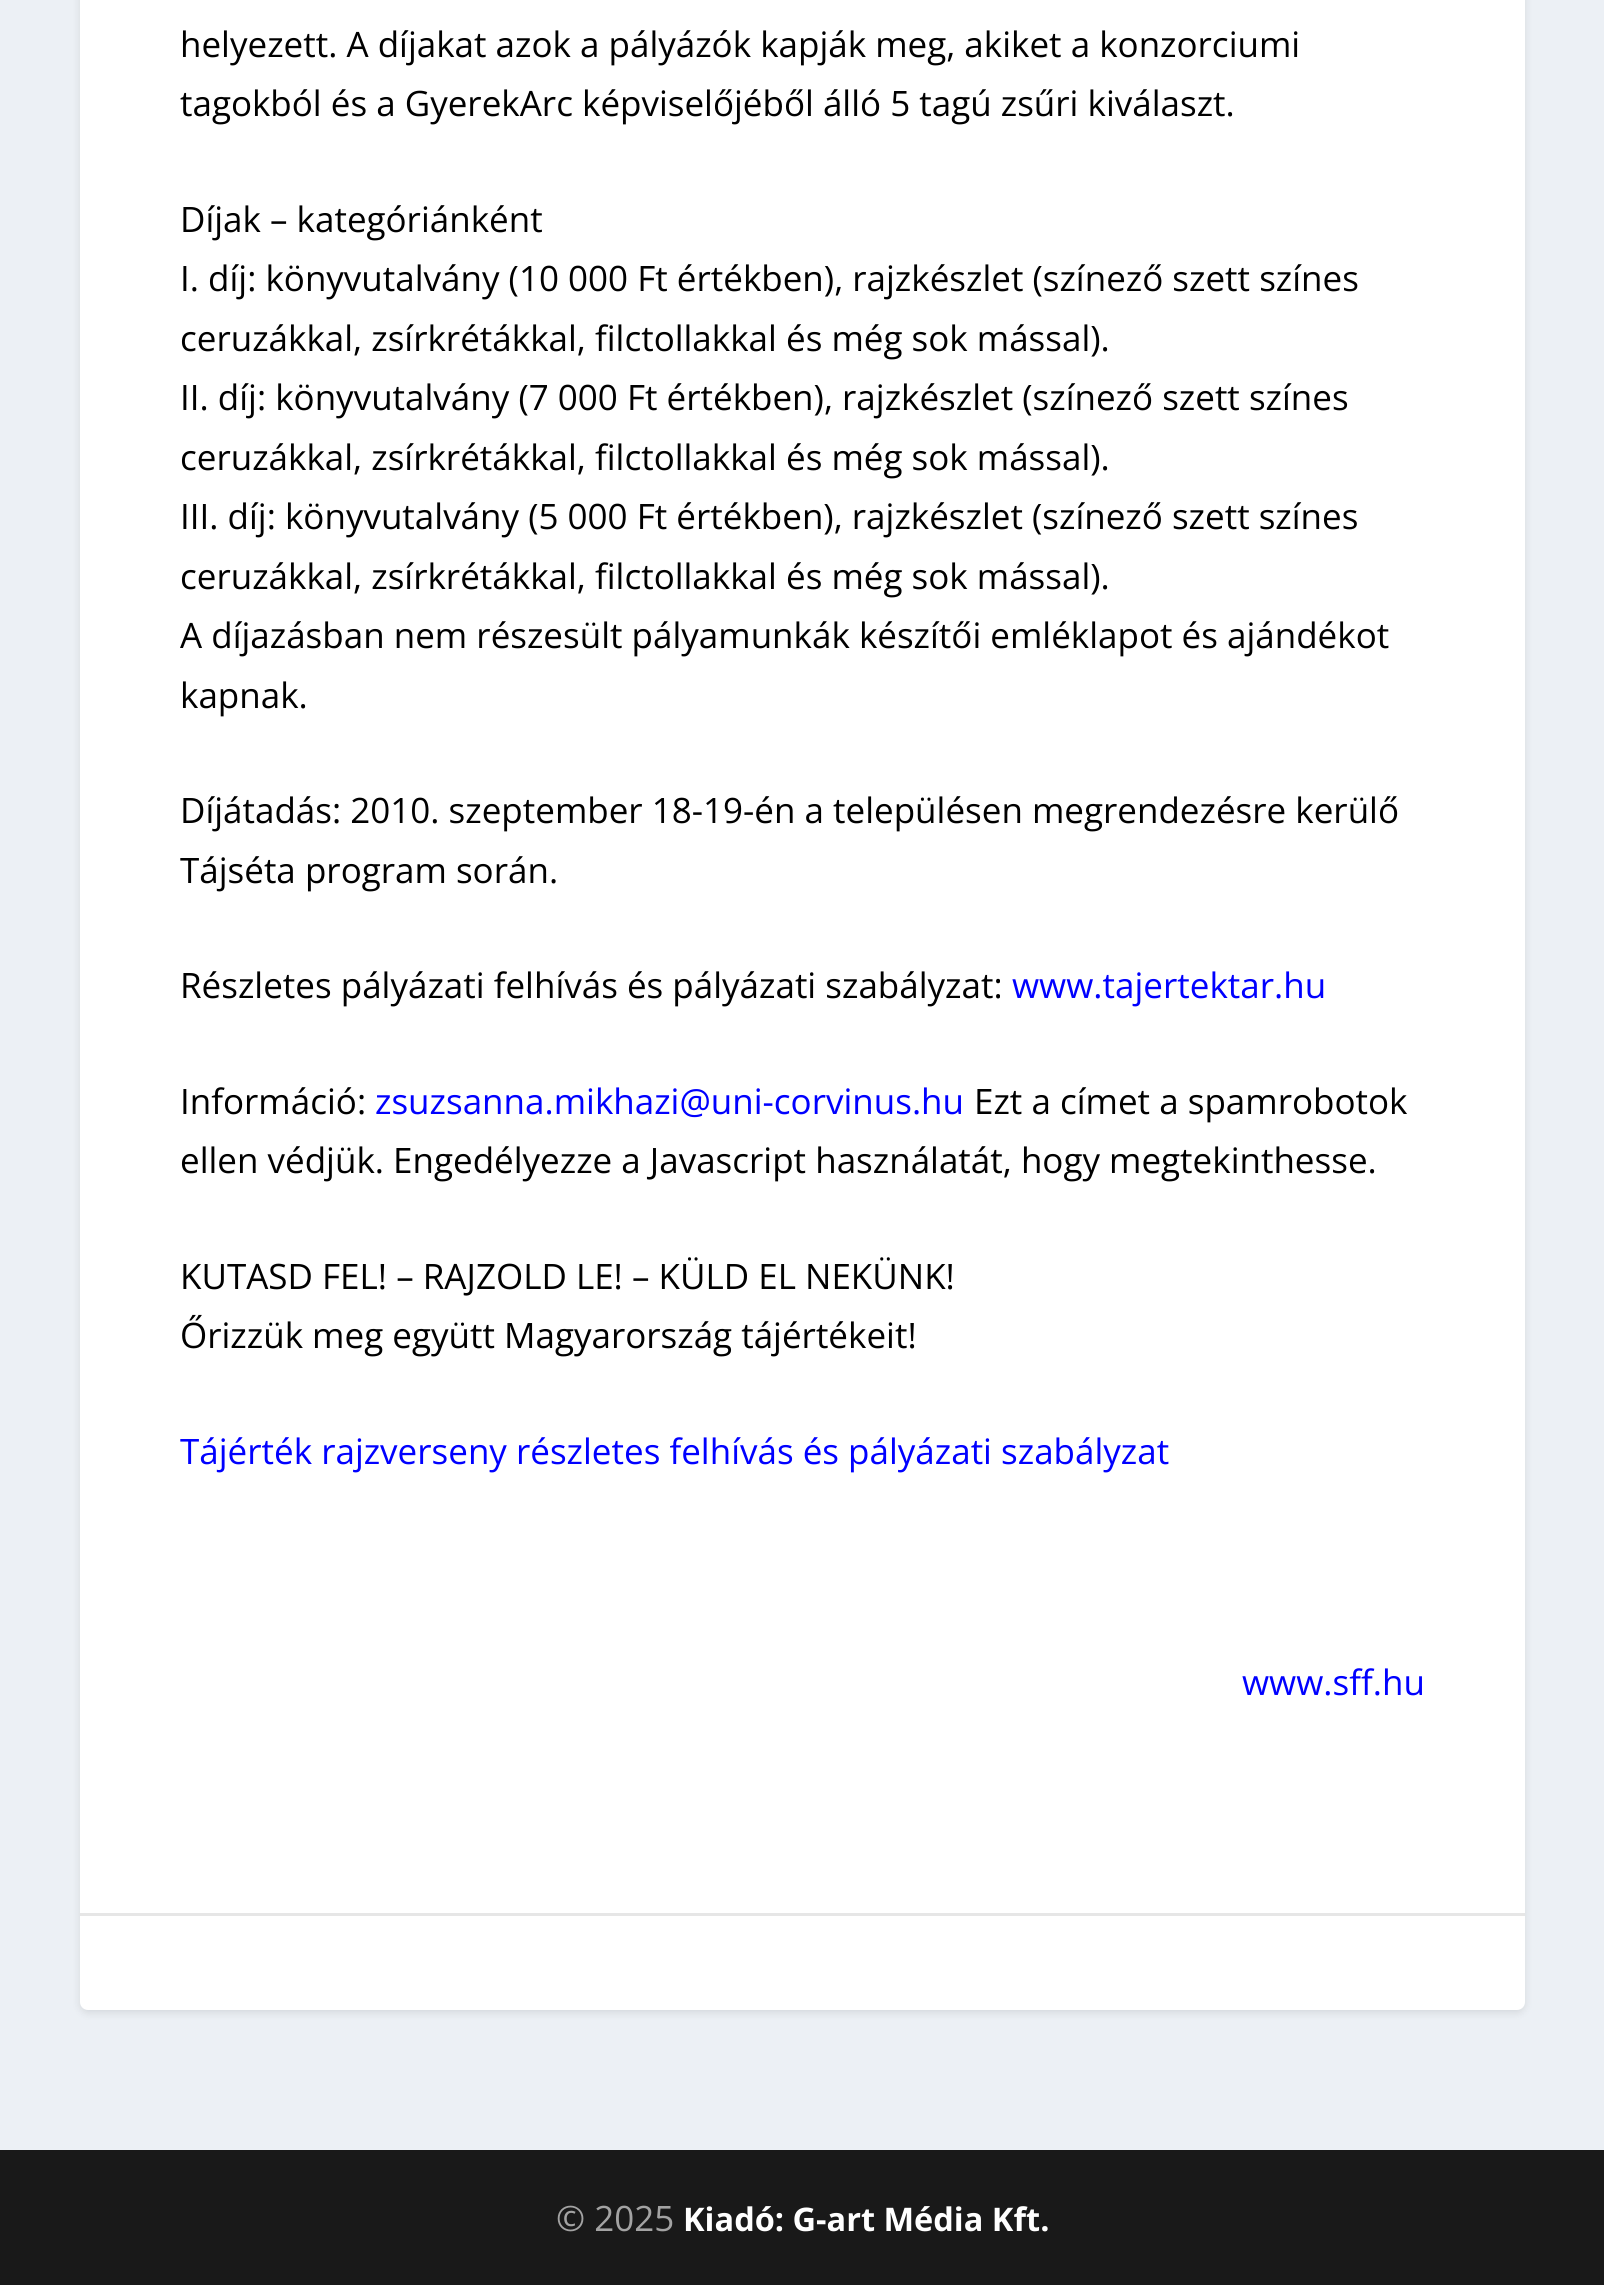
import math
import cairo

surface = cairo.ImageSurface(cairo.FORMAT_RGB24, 1604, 2285)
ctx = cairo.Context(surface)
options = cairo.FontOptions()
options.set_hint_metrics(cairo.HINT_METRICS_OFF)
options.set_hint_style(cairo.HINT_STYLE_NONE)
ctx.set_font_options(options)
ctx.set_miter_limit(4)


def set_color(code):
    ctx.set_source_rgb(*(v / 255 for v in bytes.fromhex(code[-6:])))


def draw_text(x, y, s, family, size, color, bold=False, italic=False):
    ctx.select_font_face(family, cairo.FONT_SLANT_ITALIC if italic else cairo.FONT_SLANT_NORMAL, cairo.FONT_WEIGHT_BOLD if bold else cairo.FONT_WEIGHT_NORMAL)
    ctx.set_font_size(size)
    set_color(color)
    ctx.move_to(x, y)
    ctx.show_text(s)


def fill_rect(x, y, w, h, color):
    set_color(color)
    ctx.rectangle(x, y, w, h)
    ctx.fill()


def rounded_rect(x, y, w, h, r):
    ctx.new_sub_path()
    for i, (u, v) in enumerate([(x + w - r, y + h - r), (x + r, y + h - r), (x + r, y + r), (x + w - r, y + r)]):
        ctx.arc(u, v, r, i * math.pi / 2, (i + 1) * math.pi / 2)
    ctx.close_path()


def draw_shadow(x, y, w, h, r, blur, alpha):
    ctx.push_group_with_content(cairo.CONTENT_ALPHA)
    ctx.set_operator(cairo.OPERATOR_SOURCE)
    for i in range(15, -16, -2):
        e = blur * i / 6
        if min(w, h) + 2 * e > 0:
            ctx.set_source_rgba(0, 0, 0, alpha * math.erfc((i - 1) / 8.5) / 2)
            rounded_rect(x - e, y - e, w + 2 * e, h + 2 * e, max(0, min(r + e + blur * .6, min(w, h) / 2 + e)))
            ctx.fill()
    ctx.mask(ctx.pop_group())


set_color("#ecf0f5")
ctx.paint()
set_color("#000000")
draw_shadow(80, -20, 1445, 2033, 8, 4, 0.1)
set_color("#ffffff")
rounded_rect(80, -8, 1445, 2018, 8)
ctx.fill()
draw_text(180, 57, "helyezett. A díjakat azok a pályázók kapják meg, akiket a konzorciumi", "Open Sans", 35, "#000000")
draw_text(180, 116, "tagokból és a GyerekArc képviselőjéből álló 5 tagú zsűri kiválaszt.", "Open Sans", 35, "#000000")
draw_text(180, 232, "Díjak – kategóriánként", "Open Sans", 35, "#000000")
draw_text(180, 291, "I. díj: könyvutalvány (10 000 Ft értékben), rajzkészlet (színező szett színes", "Open Sans", 35, "#000000")
draw_text(180, 351, "ceruzákkal, zsírkrétákkal, filctollakkal és még sok mással).", "Open Sans", 35, "#000000")
draw_text(180, 410, "II. díj: könyvutalvány (7 000 Ft értékben), rajzkészlet (színező szett színes", "Open Sans", 35, "#000000")
draw_text(180, 470, "ceruzákkal, zsírkrétákkal, filctollakkal és még sok mással).", "Open Sans", 35, "#000000")
draw_text(180, 529, "III. díj: könyvutalvány (5 000 Ft értékben), rajzkészlet (színező szett színes", "Open Sans", 35, "#000000")
draw_text(180, 589, "ceruzákkal, zsírkrétákkal, filctollakkal és még sok mással).", "Open Sans", 35, "#000000")
draw_text(180, 648, "A díjazásban nem részesült pályamunkák készítői emléklapot és ajándékot", "Open Sans", 35, "#000000")
draw_text(180, 708, "kapnak.", "Open Sans", 35, "#000000")
draw_text(180, 823, "Díjátadás: 2010. szeptember 18-19-én a településen megrendezésre kerülő", "Open Sans", 35, "#000000")
draw_text(180, 883, "Tájséta program során.", "Open Sans", 35, "#000000")
draw_text(180, 998, "Részletes pályázati felhívás és pályázati szabályzat:", "Open Sans", 35, "#000000")
draw_text(1012, 998, "www.tajertektar.hu", "Open Sans", 35, "#0000ff")
draw_text(180, 1114, "Információ:", "Open Sans", 35, "#000000")
draw_text(375, 1114, "zsuzsanna.mikhazi@uni-corvinus.hu", "Open Sans", 35, "#0000ff")
draw_text(974, 1114, "Ezt a címet a spamrobotok", "Open Sans", 35, "#000000")
draw_text(180, 1173, "ellen védjük. Engedélyezze a Javascript használatát, hogy megtekinthesse.", "Open Sans", 35, "#000000")
draw_text(180, 1289, "KUTASD FEL! – RAJZOLD LE! – KÜLD EL NEKÜNK!", "Open Sans", 35, "#000000")
draw_text(180, 1348, "Őrizzük meg együtt Magyarország tájértékeit!", "Open Sans", 35, "#000000")
draw_text(180, 1464, "Tájérték rajzverseny részletes felhívás és pályázati szabályzat", "Open Sans", 35, "#0000ff")
draw_text(1242, 1695, "www.sff.hu", "Open Sans", 35, "#0000ff")
fill_rect(80, 1913, 1445, 3, "#e6e6e6")
fill_rect(0, 2150, 1604, 135, "#191919")
draw_text(556, 2231, "© 2025", "Open Sans", 35, "#a3a3a3")
draw_text(683, 2231, "Kiadó: G-art Média Kft.", "Open Sans", 32.5, "#ffffff", bold=True)
surface.write_to_png("output.png")
